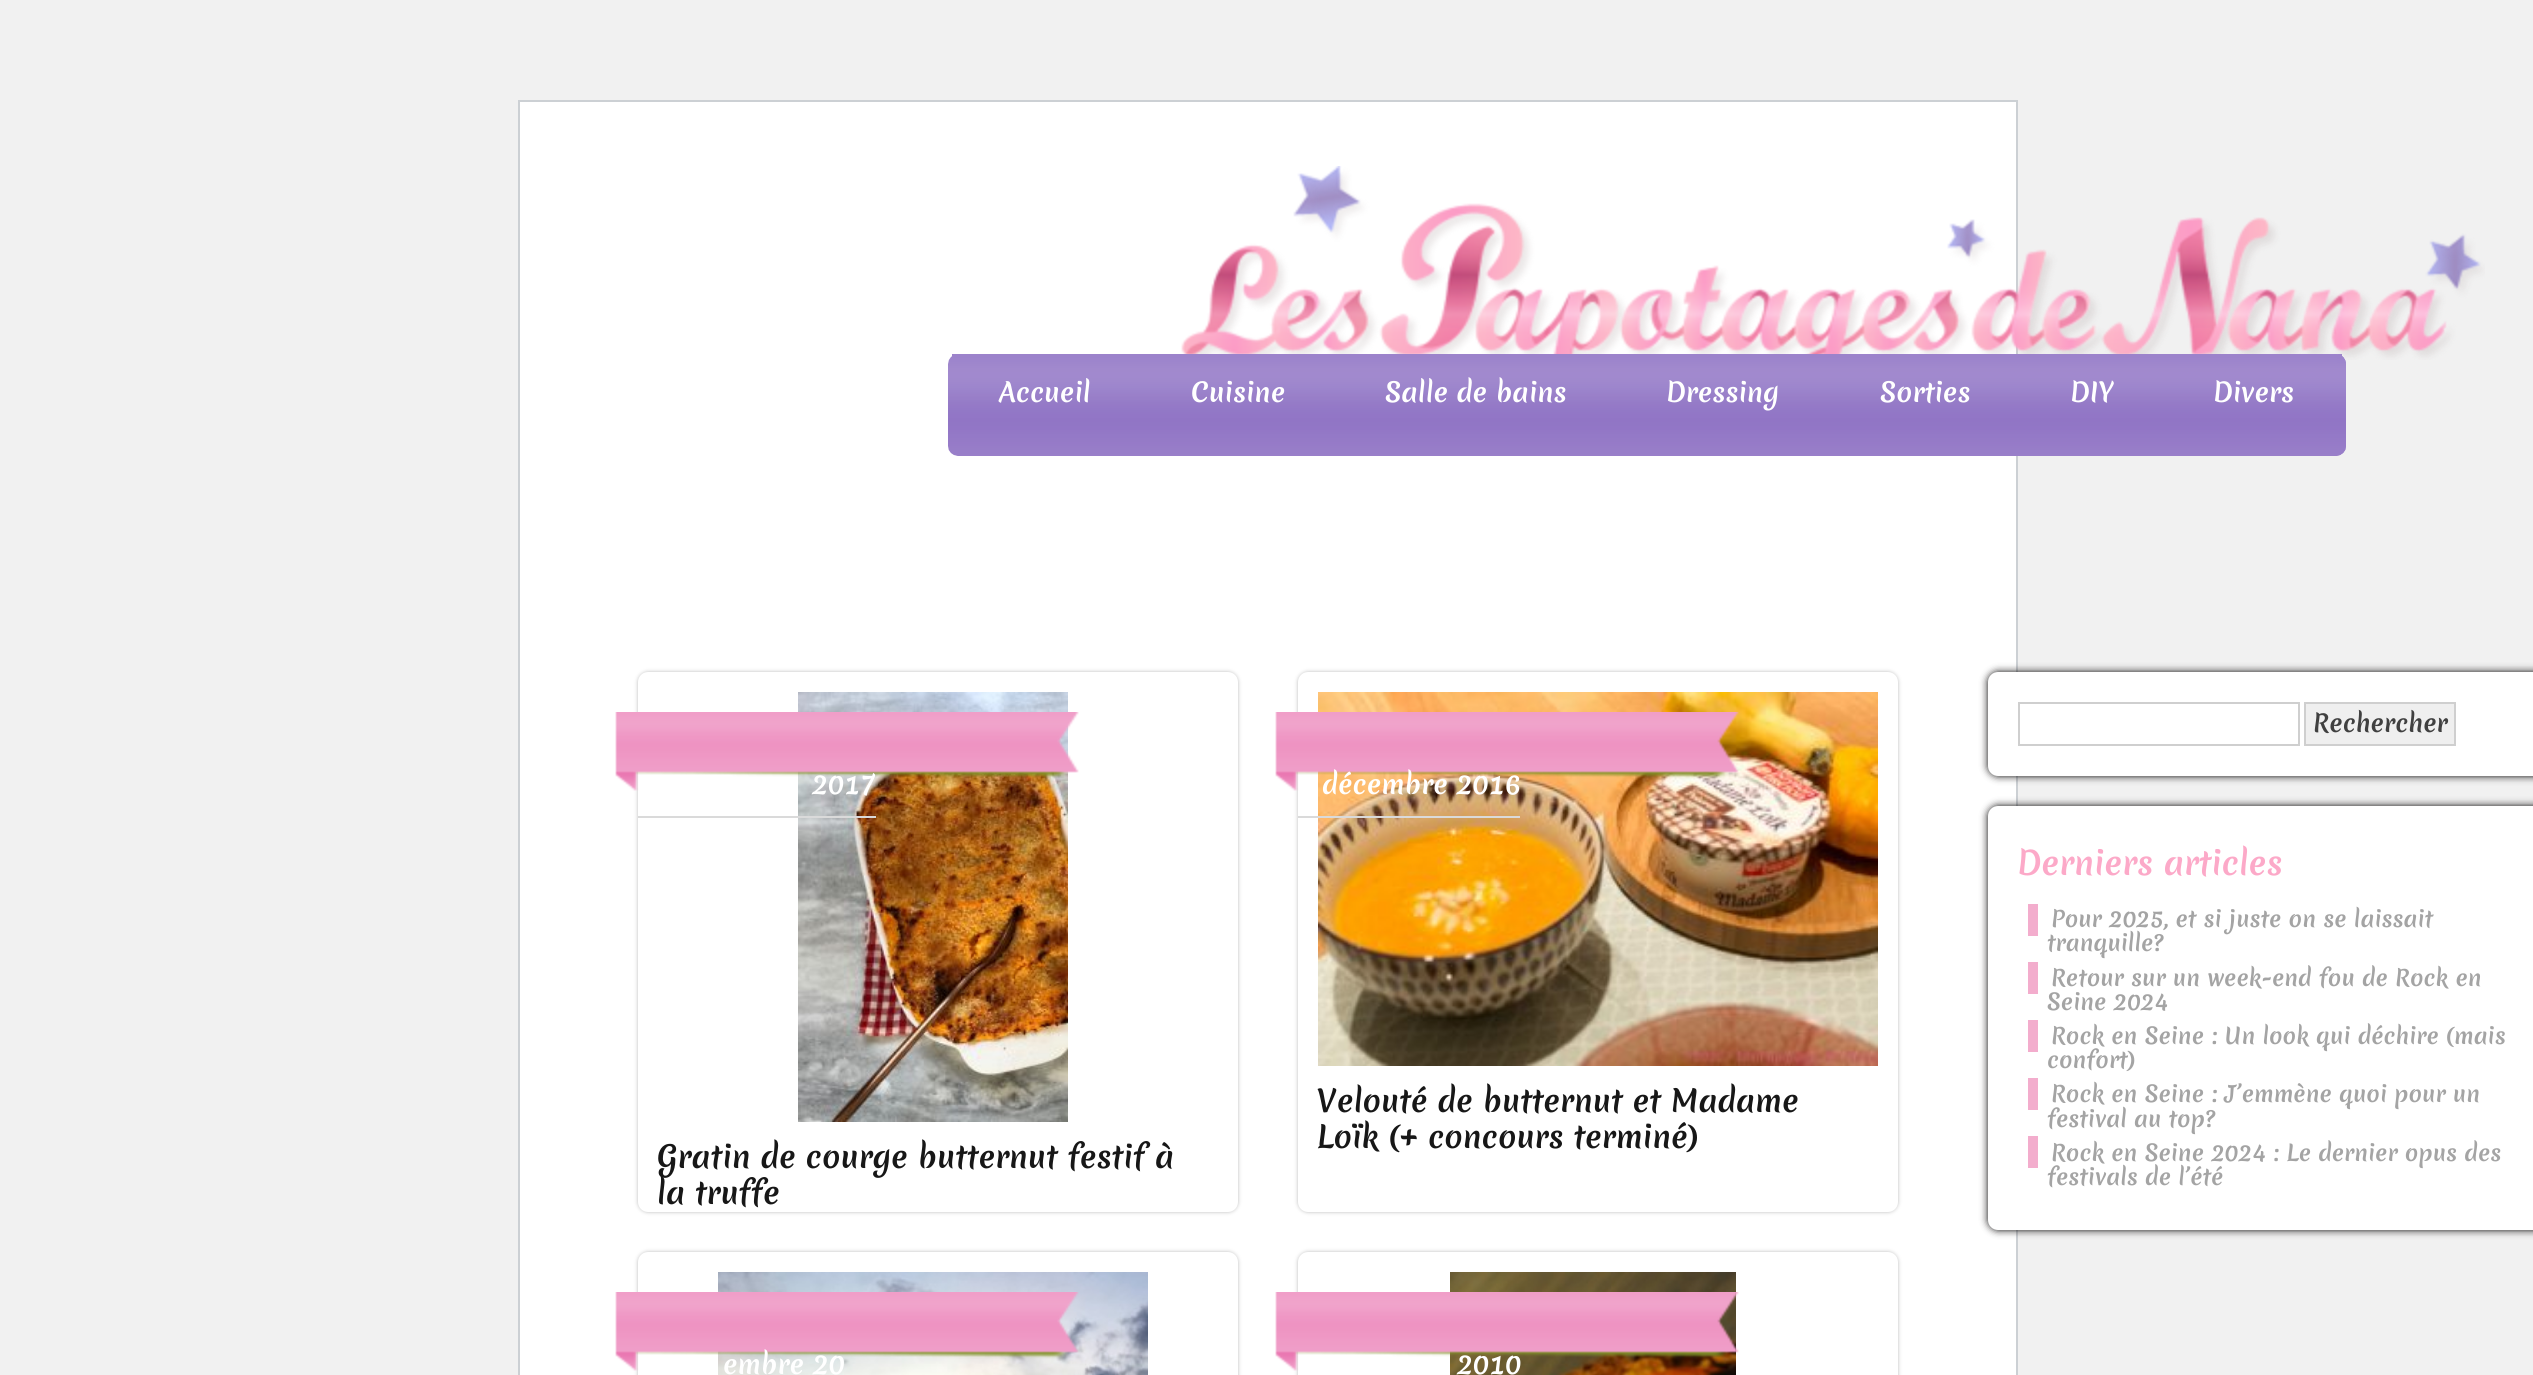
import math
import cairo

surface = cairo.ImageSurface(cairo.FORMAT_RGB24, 2533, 1375)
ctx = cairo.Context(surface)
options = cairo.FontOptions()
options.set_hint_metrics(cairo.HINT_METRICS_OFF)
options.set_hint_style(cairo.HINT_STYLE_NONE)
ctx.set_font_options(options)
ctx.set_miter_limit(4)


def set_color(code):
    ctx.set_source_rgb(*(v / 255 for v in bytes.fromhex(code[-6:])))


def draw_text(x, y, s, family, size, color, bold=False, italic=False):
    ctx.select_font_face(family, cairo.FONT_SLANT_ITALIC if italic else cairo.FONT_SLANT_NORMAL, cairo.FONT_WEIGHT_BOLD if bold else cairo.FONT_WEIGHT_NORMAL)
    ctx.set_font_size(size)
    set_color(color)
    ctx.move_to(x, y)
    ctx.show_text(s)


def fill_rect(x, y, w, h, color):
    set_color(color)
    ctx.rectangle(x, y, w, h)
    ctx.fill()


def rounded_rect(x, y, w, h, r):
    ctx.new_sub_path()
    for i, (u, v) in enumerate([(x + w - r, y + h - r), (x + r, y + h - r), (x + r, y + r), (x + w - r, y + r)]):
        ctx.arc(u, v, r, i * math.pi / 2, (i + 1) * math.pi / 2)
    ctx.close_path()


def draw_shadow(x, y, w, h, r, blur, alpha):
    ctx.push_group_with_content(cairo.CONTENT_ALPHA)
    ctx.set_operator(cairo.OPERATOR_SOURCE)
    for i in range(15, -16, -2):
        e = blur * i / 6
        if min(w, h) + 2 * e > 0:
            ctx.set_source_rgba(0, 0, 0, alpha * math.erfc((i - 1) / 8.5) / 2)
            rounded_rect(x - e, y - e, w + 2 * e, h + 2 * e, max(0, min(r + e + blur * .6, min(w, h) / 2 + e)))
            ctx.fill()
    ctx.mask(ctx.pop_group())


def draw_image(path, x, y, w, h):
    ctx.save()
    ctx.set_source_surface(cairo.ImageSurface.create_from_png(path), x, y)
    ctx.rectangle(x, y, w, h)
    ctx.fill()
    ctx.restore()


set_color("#f1f1f1")
ctx.paint()
set_color("#ffffff")
ctx.rectangle(519, 101, 1498, 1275)
ctx.fill_preserve()
set_color("#ccd0d4")
ctx.stroke()
draw_image("assets/img1.png", 1180, 166, 1305, 194)
draw_image("assets/img2.png", 948, 354, 1398, 102)
draw_image("assets/img3.png", 956, 354, 1390, 102)
fill_rect(952, 354, 6, 3, "#9c83cb")
draw_text(999, 402, "Accueil", "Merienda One", 26, "#ffffff")
draw_text(1191, 402, "Cuisine", "Merienda One", 26, "#ffffff")
draw_text(1385, 402, "Salle de bains", "Merienda One", 26, "#ffffff")
draw_text(1666, 402, "Dressing", "Merienda One", 26, "#ffffff")
draw_text(1880, 402, "Sorties", "Merienda One", 26, "#ffffff")
draw_text(2070, 402, "DIY", "Merienda One", 26, "#ffffff")
draw_image("assets/img4.png", 2337, 354, 9, 9)
fill_rect(2338, 354, 4, 2, "#9c83cb")
draw_text(2213, 402, "Divers", "Merienda One", 26, "#ffffff")
set_color("#bbbbbb")
draw_shadow(638, 672, 600, 540, 10, 2, 1)
set_color("#ffffff")
rounded_rect(638, 672, 600, 540, 10)
ctx.fill()
draw_image("assets/img5.png", 798, 692, 270, 430)
draw_image("assets/img6.png", 615, 712, 464, 79)
fill_rect(638, 816, 238, 2, "#dadada")
draw_text(812, 794, "2017", "Merienda One", 26, "#ffffff")
draw_text(657, 1168, "Gratin de courge butternut festif à", "Merienda One", 30, "#171717")
draw_text(657, 1204, "la truffe", "Merienda One", 30, "#171717")
set_color("#bbbbbb")
draw_shadow(1298, 672, 600, 540, 10, 2, 1)
set_color("#ffffff")
rounded_rect(1298, 672, 600, 540, 10)
ctx.fill()
draw_image("assets/img7.png", 1318, 692, 560, 374)
draw_image("assets/img8.png", 1275, 712, 464, 79)
fill_rect(1298, 816, 222, 2, "#dadada")
draw_text(1322, 794, "décembre 2016", "Merienda One", 26, "#ffffff")
draw_text(1317, 1112, "Velouté de butternut et Madame", "Merienda One", 30, "#171717")
draw_text(1317, 1148, "Loïk (+ concours terminé)", "Merienda One", 30, "#171717")
set_color("#bbbbbb")
draw_shadow(638, 1252, 600, 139, 10, 2, 1)
set_color("#ffffff")
rounded_rect(638, 1252, 600, 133, 10)
ctx.fill()
draw_image("assets/img9.png", 718, 1272, 430, 103)
draw_image("assets/img10.png", 615, 1292, 464, 79)
draw_text(723, 1374, "embre 20", "Merienda One", 26, "#ffffff")
set_color("#bbbbbb")
draw_shadow(1298, 1252, 600, 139, 10, 2, 1)
set_color("#ffffff")
rounded_rect(1298, 1252, 600, 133, 10)
ctx.fill()
draw_image("assets/img11.png", 1450, 1272, 286, 103)
draw_image("assets/img12.png", 1275, 1292, 464, 79)
draw_text(1457, 1374, "2010", "Merienda One", 26, "#ffffff")
set_color("#040202")
draw_shadow(1988, 672, 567, 104, 10, 4, 1)
set_color("#ffffff")
rounded_rect(1988, 672, 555, 104, 10)
ctx.fill()
ctx.rectangle(2019, 703, 280, 42)
set_color("#cfcfcf")
ctx.stroke()
set_color("#efefef")
ctx.rectangle(2305, 703, 150, 42)
ctx.fill_preserve()
set_color("#cfcfcf")
ctx.stroke()
draw_text(2313, 732, "Rechercher", "Merienda One", 24, "#404040")
set_color("#040202")
draw_shadow(1988, 806, 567, 424, 10, 4, 1)
set_color("#ffffff")
rounded_rect(1988, 806, 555, 424, 10)
ctx.fill()
draw_text(2017, 875, "Derniers articles", "Merienda One", 32, "#fca9c8")
draw_text(2051, 927, "Pour 2025, et si juste on se laissait", "Merienda One", 22, "#a4a4a4")
fill_rect(2028, 904, 10, 32, "#f3adcd")
draw_text(2047, 951, "tranquille?", "Merienda One", 22, "#a4a4a4")
draw_text(2051, 986, "Retour sur un week-end fou de Rock en", "Merienda One", 22, "#a4a4a4")
fill_rect(2028, 962, 10, 32, "#f3adcd")
draw_text(2047, 1010, "Seine 2024", "Merienda One", 22, "#a4a4a4")
draw_text(2051, 1044, "Rock en Seine : Un look qui déchire (mais", "Merienda One", 22, "#a4a4a4")
fill_rect(2028, 1020, 10, 32, "#f3adcd")
draw_text(2047, 1068, "confort)", "Merienda One", 22, "#a4a4a4")
draw_text(2051, 1102, "Rock en Seine : J’emmène quoi pour un", "Merienda One", 22, "#a4a4a4")
fill_rect(2028, 1078, 10, 32, "#f3adcd")
draw_text(2047, 1127, "festival au top?", "Merienda One", 22, "#a4a4a4")
draw_text(2051, 1161, "Rock en Seine 2024 : Le dernier opus des", "Merienda One", 22, "#a4a4a4")
fill_rect(2028, 1136, 10, 32, "#f3adcd")
draw_text(2047, 1185, "festivals de l’été", "Merienda One", 22, "#a4a4a4")
surface.write_to_png("output.png")
